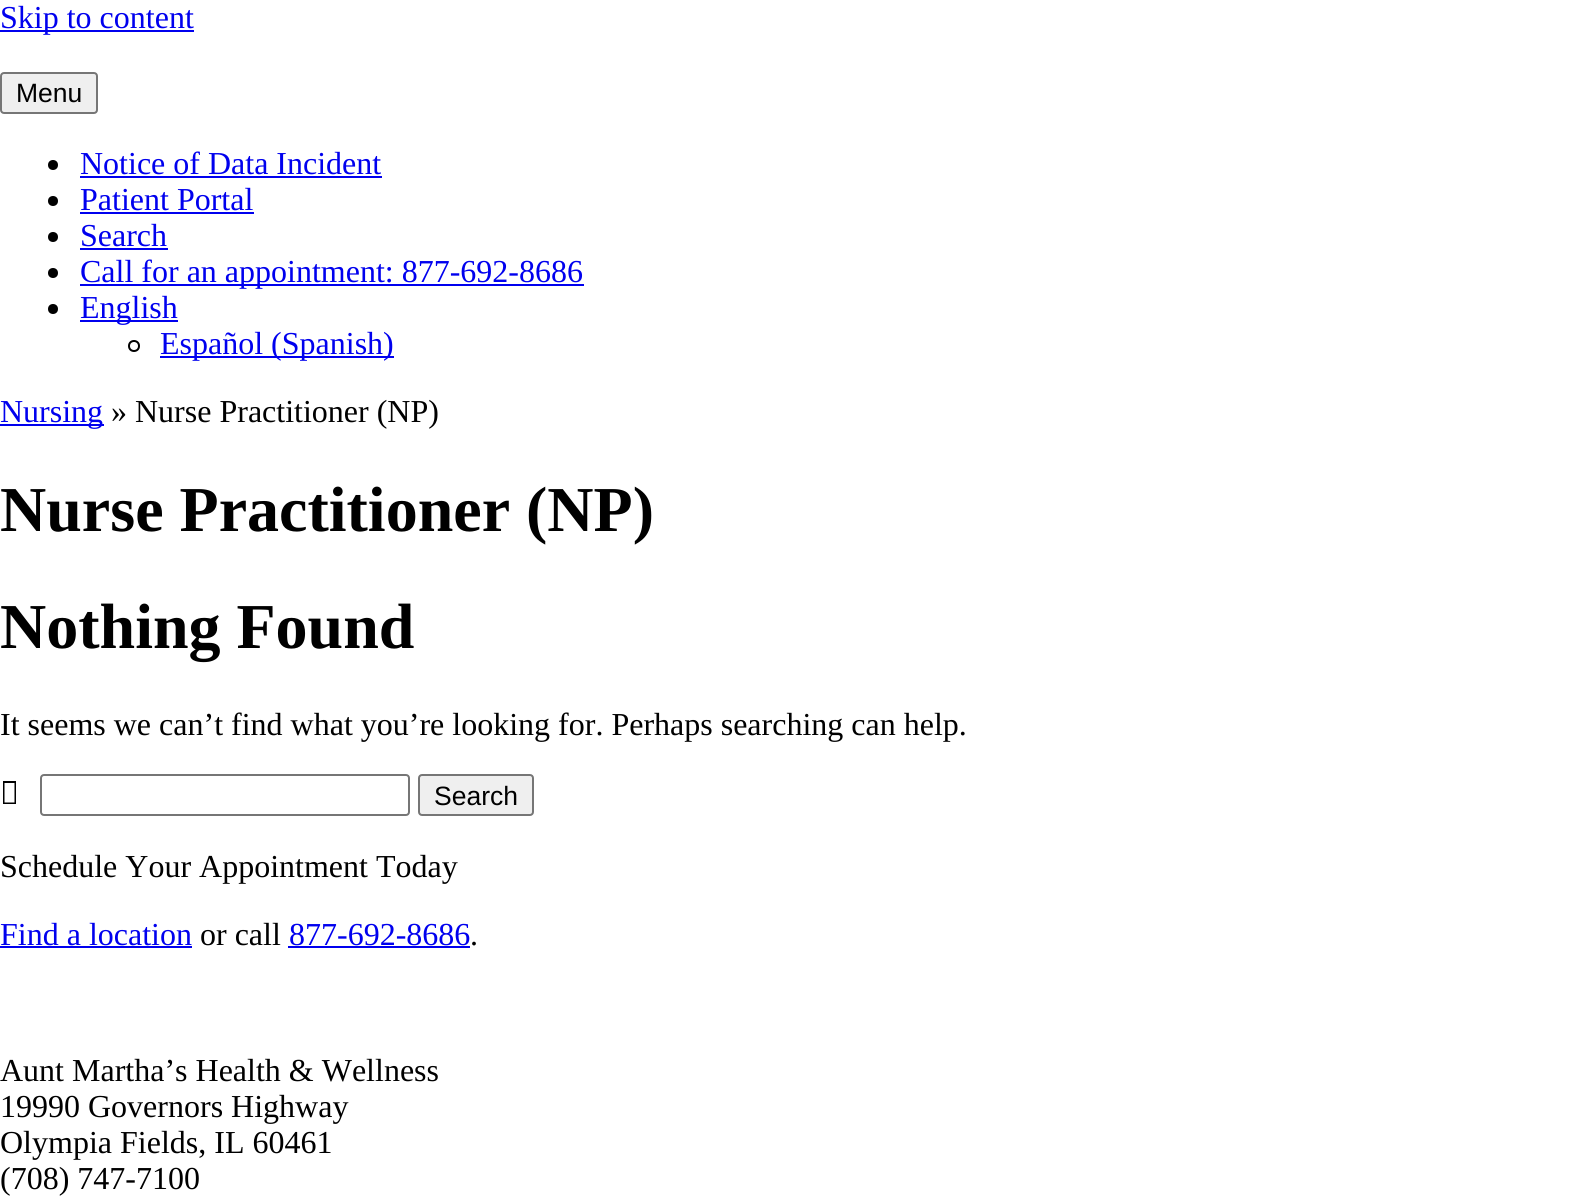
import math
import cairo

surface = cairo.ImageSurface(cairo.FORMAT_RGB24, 1579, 1203)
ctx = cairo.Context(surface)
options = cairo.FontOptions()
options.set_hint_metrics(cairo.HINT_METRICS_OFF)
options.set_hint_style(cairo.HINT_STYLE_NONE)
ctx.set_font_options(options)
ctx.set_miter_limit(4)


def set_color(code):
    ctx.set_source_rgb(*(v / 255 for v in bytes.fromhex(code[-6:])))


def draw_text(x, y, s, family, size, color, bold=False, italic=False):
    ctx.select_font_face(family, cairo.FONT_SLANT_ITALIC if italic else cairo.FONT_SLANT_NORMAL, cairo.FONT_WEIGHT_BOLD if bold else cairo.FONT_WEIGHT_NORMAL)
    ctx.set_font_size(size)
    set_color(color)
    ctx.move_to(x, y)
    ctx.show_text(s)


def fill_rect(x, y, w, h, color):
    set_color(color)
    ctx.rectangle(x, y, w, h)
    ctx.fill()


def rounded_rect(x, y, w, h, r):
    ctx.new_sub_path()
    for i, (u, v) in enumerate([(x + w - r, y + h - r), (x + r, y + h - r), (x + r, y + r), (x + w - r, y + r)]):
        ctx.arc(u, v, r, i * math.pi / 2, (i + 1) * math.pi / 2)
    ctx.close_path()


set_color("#ffffff")
ctx.paint()
fill_rect(0, 30, 194, 2, "#0000ee")
draw_text(0, 28, "Skip to content", "Liberation Serif", 32, "#0000ee")
set_color("#efefef")
rounded_rect(1, 73, 96, 40, 3)
ctx.fill_preserve()
set_color("#767676")
ctx.stroke()
draw_text(16, 102, "Menu", "Liberation Sans", 26.5, "#000000")
ctx.new_path()
ctx.arc(53, 165, 5, 0, 2 * math.pi)
ctx.fill()
draw_text(80, 174, "Notice of Data Incident", "Liberation Serif", 32, "#0000ee")
fill_rect(80, 176, 302, 2, "#0000ee")
set_color("#000000")
ctx.new_path()
ctx.arc(53, 201, 5, 0, 2 * math.pi)
ctx.fill()
draw_text(80, 210, "Patient Portal", "Liberation Serif", 32, "#0000ee")
fill_rect(80, 212, 174, 2, "#0000ee")
set_color("#000000")
ctx.new_path()
ctx.arc(53, 237, 5, 0, 2 * math.pi)
ctx.fill()
draw_text(80, 246, "Search", "Liberation Serif", 32, "#0000ee")
fill_rect(80, 248, 88, 2, "#0000ee")
set_color("#000000")
ctx.new_path()
ctx.arc(53, 273, 5, 0, 2 * math.pi)
ctx.fill()
fill_rect(80, 284, 504, 2, "#0000ee")
draw_text(80, 282, "Call for an appointment: 877-692-8686", "Liberation Serif", 32, "#0000ee")
set_color("#000000")
ctx.new_path()
ctx.arc(53, 309, 5, 0, 2 * math.pi)
ctx.fill()
fill_rect(80, 320, 98, 2, "#0000ee")
draw_text(80, 318, "English", "Liberation Serif", 32, "#0000ee")
ctx.new_path()
ctx.arc(134, 346, 5, 0, 2 * math.pi)
set_color("#000000")
ctx.stroke()
fill_rect(160, 356, 234, 2, "#0000ee")
draw_text(160, 354, "Español (Spanish)", "Liberation Serif", 32, "#0000ee")
fill_rect(0, 424, 104, 2, "#0000ee")
draw_text(0, 422, "Nursing", "Liberation Serif", 32, "#0000ee")
draw_text(111, 422, "» Nurse Practitioner (NP)", "Liberation Serif", 32, "#000000")
draw_text(0, 531, "Nurse Practitioner (NP)", "Liberation Serif", 64, "#000000", bold=True)
draw_text(0, 648, "Nothing Found", "Liberation Serif", 64, "#000000", bold=True)
draw_text(0, 735, "It seems we can’t find what you’re looking for. Perhaps searching can help.", "Liberation Serif", 32, "#000000")
ctx.new_path()
ctx.move_to(3, 804)
ctx.line_to(3, 781)
ctx.line_to(16, 781)
ctx.line_to(16, 804)
ctx.close_path()
ctx.move_to(4.5, 802.5)
ctx.line_to(14.5, 802.5)
ctx.line_to(14.5, 783)
ctx.line_to(4.5, 783)
ctx.close_path()
ctx.fill()
rounded_rect(41, 775, 368, 40, 3)
set_color("#767676")
ctx.stroke()
set_color("#efefef")
rounded_rect(419, 775, 114, 40, 3)
ctx.fill_preserve()
set_color("#767676")
ctx.stroke()
draw_text(434, 805, "Search", "Liberation Sans", 26.5, "#000000")
draw_text(0, 877, "Schedule Your Appointment Today", "Liberation Serif", 32, "#000000")
draw_text(0, 945, "Find a location", "Liberation Serif", 32, "#0000ee")
fill_rect(0, 946, 192, 2, "#0000ee")
draw_text(200, 945, "or call", "Liberation Serif", 32, "#000000")
draw_text(289, 945, "877-692-8686", "Liberation Serif", 32, "#0000ee")
fill_rect(288, 946, 182, 2, "#0000ee")
draw_text(470, 945, ".", "Liberation Serif", 32, "#000000")
draw_text(0, 1081, "Aunt Martha’s Health & Wellness", "Liberation Serif", 32, "#000000")
draw_text(0, 1117, "19990 Governors Highway", "Liberation Serif", 32, "#000000")
draw_text(0, 1153, "Olympia Fields, IL 60461", "Liberation Serif", 32, "#000000")
draw_text(0, 1189, "(708) 747-7100", "Liberation Serif", 32, "#000000")
surface.write_to_png("output.png")
